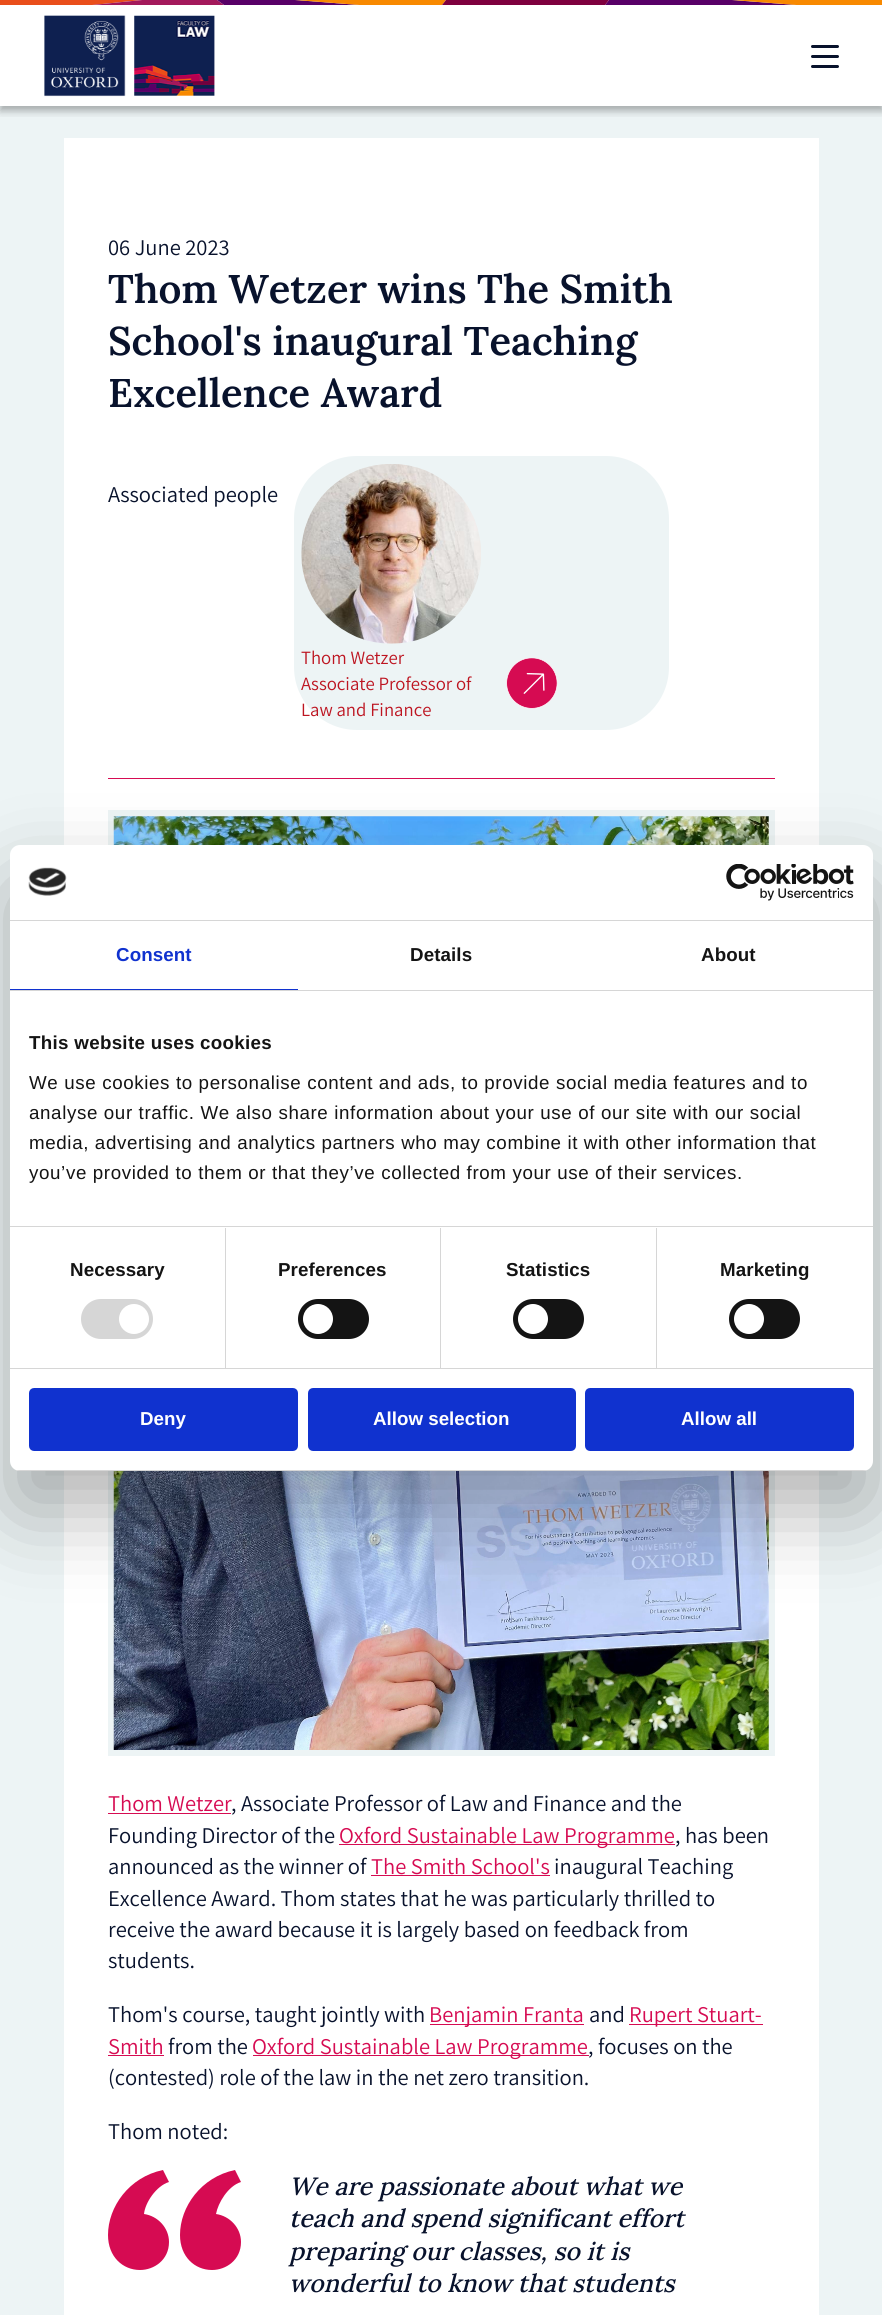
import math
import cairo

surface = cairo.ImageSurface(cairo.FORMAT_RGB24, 882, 2315)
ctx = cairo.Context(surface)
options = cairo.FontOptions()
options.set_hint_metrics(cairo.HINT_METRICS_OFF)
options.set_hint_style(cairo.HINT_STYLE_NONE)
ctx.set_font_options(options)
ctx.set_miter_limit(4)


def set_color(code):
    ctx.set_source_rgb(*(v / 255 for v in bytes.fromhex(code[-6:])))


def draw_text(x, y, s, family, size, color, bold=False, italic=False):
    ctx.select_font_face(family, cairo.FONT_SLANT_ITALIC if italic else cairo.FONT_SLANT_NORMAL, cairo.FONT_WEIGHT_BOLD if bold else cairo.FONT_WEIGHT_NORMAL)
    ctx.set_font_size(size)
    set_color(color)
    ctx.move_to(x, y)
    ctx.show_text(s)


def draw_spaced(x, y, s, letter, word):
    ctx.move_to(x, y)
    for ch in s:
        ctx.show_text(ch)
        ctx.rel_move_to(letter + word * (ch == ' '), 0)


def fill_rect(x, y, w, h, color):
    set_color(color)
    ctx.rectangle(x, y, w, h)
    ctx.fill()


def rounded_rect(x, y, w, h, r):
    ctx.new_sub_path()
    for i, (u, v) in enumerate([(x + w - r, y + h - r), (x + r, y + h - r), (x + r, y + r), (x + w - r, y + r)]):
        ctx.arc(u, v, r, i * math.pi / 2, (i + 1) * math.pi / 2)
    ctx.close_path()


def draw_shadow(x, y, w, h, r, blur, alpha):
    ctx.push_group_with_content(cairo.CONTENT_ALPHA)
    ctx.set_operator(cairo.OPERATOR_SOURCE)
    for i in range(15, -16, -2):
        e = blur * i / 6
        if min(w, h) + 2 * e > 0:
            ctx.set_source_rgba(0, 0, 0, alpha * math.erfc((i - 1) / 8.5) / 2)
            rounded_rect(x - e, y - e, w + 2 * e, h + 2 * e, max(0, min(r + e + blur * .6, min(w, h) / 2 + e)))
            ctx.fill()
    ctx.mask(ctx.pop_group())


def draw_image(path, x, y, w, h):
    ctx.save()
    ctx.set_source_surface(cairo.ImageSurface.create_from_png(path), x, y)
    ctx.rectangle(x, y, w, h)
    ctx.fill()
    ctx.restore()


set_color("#ffffff")
ctx.paint()
fill_rect(0, 106, 882, 2209, "#edf4f5")
ctx.save()
ctx.rectangle(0, 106, 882, 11)
ctx.clip()
set_color("#000000")
draw_shadow(0, 5, 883, 106, 0, 4, 0.3)
ctx.restore()
set_color("#e94e1b")
ctx.new_path()
ctx.move_to(92, 5)
ctx.line_to(0, 5)
ctx.line_to(0, 0)
ctx.line_to(142, 0)
ctx.close_path()
ctx.fill()
set_color("#a3195b")
ctx.new_path()
ctx.move_to(217, 0)
ctx.line_to(142, 0)
ctx.line_to(92, 5)
ctx.line_to(224, 5)
ctx.close_path()
ctx.fill()
set_color("#580067")
ctx.new_path()
ctx.move_to(295, 0)
ctx.line_to(217, 0)
ctx.line_to(224, 5)
ctx.line_to(359, 5)
ctx.close_path()
ctx.move_to(732, 0)
ctx.line_to(609, 0)
ctx.line_to(605, 5)
ctx.line_to(796, 5)
ctx.close_path()
ctx.fill()
set_color("#f88900")
ctx.new_path()
ctx.move_to(446, 0)
ctx.line_to(295, 0)
ctx.line_to(359, 5)
ctx.line_to(442, 5)
ctx.close_path()
ctx.move_to(882, 0)
ctx.line_to(732, 0)
ctx.line_to(796, 5)
ctx.line_to(882, 5)
ctx.close_path()
ctx.fill()
set_color("#7e003e")
ctx.new_path()
ctx.move_to(609, 0)
ctx.line_to(446, 0)
ctx.line_to(442, 5)
ctx.line_to(605, 5)
ctx.close_path()
ctx.fill()
draw_image("assets/img1.png", 44, 15, 171, 82)
set_color("#08122c")
rounded_rect(811, 45, 28, 3, 1.5)
ctx.fill()
rounded_rect(811, 55, 28, 3, 1.5)
ctx.fill()
rounded_rect(811, 65, 28, 3, 1.5)
ctx.fill()
fill_rect(64, 138, 755, 2177, "#ffffff")
draw_text(108, 255, "06 June 2023", "Assistant ExtraLight", 22.5, "#08122c")
draw_text(108, 303, "Thom Wetzer wins The Smith", "Lora SemiBold", 40, "#08122c")
draw_text(108, 355, "School's inaugural Teaching", "Lora SemiBold", 40, "#08122c")
draw_text(108, 407, "Excellence Award", "Lora SemiBold", 40, "#08122c")
fill_rect(108, 778, 667, 1, "#d60b52")
draw_text(108, 502, "Associated people", "Assistant ExtraLight", 22.5, "#08122c")
set_color("#edf4f5")
rounded_rect(294, 456, 375, 274, 63)
ctx.fill()
draw_image("assets/img2.png", 301, 464, 180, 180)
draw_text(301, 664, "Thom Wetzer", "Assistant ExtraLight", 18.75, "#bd1521")
draw_text(301, 690, "Associate Professor of", "Assistant ExtraLight", 18.75, "#bd1521")
draw_text(301, 716, "Law and Finance", "Assistant ExtraLight", 18.75, "#bd1521")
draw_image("assets/img3.png", 506, 658, 52, 51)
fill_rect(108, 810, 667, 946, "#edf4f5")
draw_image("assets/img4.png", 113, 816, 656, 934)
draw_text(108, 1811, "Thom Wetzer", "Assistant ExtraLight", 22.5, "#d60b52")
fill_rect(108, 1813, 123, 1, "#d60b52")
draw_text(231, 1811, ", Associate Professor of Law and Finance and the", "Assistant ExtraLight", 22.5, "#08122c")
draw_text(108, 1843, "Founding Director of the", "Assistant ExtraLight", 22.5, "#08122c")
fill_rect(339, 1844, 336, 1, "#d60b52")
draw_text(339, 1843, "Oxford Sustainable Law Programme", "Assistant ExtraLight", 22.5, "#d60b52")
draw_text(675, 1843, ", has been", "Assistant ExtraLight", 22.5, "#08122c")
draw_text(108, 1874, "announced as the winner of", "Assistant ExtraLight", 22.5, "#08122c")
draw_text(371, 1874, "The Smith School's", "Assistant ExtraLight", 22.5, "#d60b52")
fill_rect(371, 1875, 179, 1, "#d60b52")
draw_text(554, 1874, "inaugural Teaching", "Assistant ExtraLight", 22.5, "#08122c")
draw_text(108, 1906, "Excellence Award. Thom states that he was particularly thrilled to", "Assistant ExtraLight", 22.5, "#08122c")
draw_text(108, 1937, "receive the award because it is largely based on feedback from", "Assistant ExtraLight", 22.5, "#08122c")
draw_text(108, 1968, "students.", "Assistant ExtraLight", 22.5, "#08122c")
draw_text(108, 2022, "Thom's course, taught jointly with", "Assistant ExtraLight", 22.5, "#08122c")
fill_rect(430, 2024, 154, 1, "#d60b52")
draw_text(429, 2022, "Benjamin Franta", "Assistant ExtraLight", 22.5, "#d60b52")
draw_text(589, 2022, "and", "Assistant ExtraLight", 22.5, "#08122c")
fill_rect(629, 2024, 134, 1, "#d60b52")
draw_text(629, 2022, "Rupert Stuart-", "Assistant ExtraLight", 22.5, "#d60b52")
draw_text(108, 2054, "Smith", "Assistant ExtraLight", 22.5, "#d60b52")
fill_rect(108, 2055, 56, 1, "#d60b52")
draw_text(168, 2054, "from the", "Assistant ExtraLight", 22.5, "#08122c")
fill_rect(253, 2055, 336, 1, "#d60b52")
draw_text(252, 2054, "Oxford Sustainable Law Programme", "Assistant ExtraLight", 22.5, "#d60b52")
draw_text(588, 2054, ", focuses on the", "Assistant ExtraLight", 22.5, "#08122c")
draw_text(108, 2085, "(contested) role of the law in the net zero transition.", "Assistant ExtraLight", 22.5, "#08122c")
draw_text(108, 2139, "Thom noted:", "Assistant ExtraLight", 22.5, "#08122c")
set_color("#d60b52")
ctx.new_path()
ctx.move_to(180, 2235)
ctx.curve_to(180, 2207, 201, 2177, 235, 2170)
ctx.line_to(241, 2182)
ctx.curve_to(228, 2186, 218, 2203, 216, 2214)
ctx.curve_to(230, 2216, 241, 2228, 241, 2242)
ctx.curve_to(241, 2260, 226, 2270, 212, 2270)
ctx.curve_to(195, 2270, 180, 2257, 180, 2235)
ctx.close_path()
ctx.move_to(108, 2235)
ctx.curve_to(108, 2207, 129, 2177, 163, 2170)
ctx.line_to(169, 2182)
ctx.curve_to(156, 2186, 145, 2203, 144, 2214)
ctx.curve_to(158, 2216, 169, 2228, 169, 2242)
ctx.curve_to(169, 2260, 154, 2270, 140, 2270)
ctx.curve_to(123, 2270, 108, 2257, 108, 2235)
ctx.close_path()
ctx.fill()
draw_text(289, 2195, "We are passionate about what we", "Lora Medium", 25, "#08122c", italic=True)
draw_text(289, 2227, "teach and spend significant effort", "Lora Medium", 25, "#08122c", italic=True)
draw_text(289, 2260, "preparing our classes, so it is", "Lora Medium", 25, "#08122c", italic=True)
draw_text(289, 2292, "wonderful to know that students", "Lora Medium", 25, "#08122c", italic=True)
set_color("#000000")
draw_shadow(10, 885, 863, 626, 10, 42.5, 0.3)
set_color("#ffffff")
rounded_rect(10, 845, 863, 626, 10)
ctx.fill()
fill_rect(10, 920, 863, 1, "#d6d6d6")
draw_image("assets/img5.png", 28, 867, 39, 29)
draw_image("assets/img6.png", 726, 864, 128, 37)
fill_rect(10, 990, 863, 1, "#d6d6d6")
fill_rect(10, 989, 288, 1, "#1032cf")
ctx.select_font_face("Liberation Sans", cairo.FONT_SLANT_NORMAL, cairo.FONT_WEIGHT_BOLD)
ctx.set_font_size(18.75)
draw_spaced(116, 961, "Consent", 0.1, 0)
set_color("#141414")
draw_spaced(410, 961, "Details", 0.1, 0)
draw_spaced(701, 961, "About", 0.1, 0)
fill_rect(10, 1226, 863, 1, "#d6d6d6")
set_color("#141414")
draw_spaced(29, 1049, "This website uses cookies", 0.3, 0)
ctx.select_font_face("Liberation Sans")
draw_spaced(29, 1089, "We use cookies to personalise content and ads, to provide social media features and to", 0.62, 0)
draw_spaced(29, 1119, "analyse our traffic. We also share information about your use of our site with our social", 0.62, 0)
draw_spaced(29, 1149, "media, advertising and analytics partners who may combine it with other information that", 0.62, 0)
draw_spaced(29, 1179, "you’ve provided to them or that they’ve collected from your use of their services.", 0.62, 0)
fill_rect(10, 1368, 863, 1, "#d6d6d6")
fill_rect(225, 1228, 1, 140, "#d6d6d6")
ctx.select_font_face("Liberation Sans", cairo.FONT_SLANT_NORMAL, cairo.FONT_WEIGHT_BOLD)
set_color("#141414")
draw_spaced(70, 1276, "Necessary", 0.1, 0)
set_color("#d6d6d6")
rounded_rect(81, 1299, 72, 40, 20)
ctx.fill()
set_color("#ffffff")
ctx.arc(134, 1319, 15, 0, 2 * math.pi)
ctx.fill()
fill_rect(440, 1228, 1, 140, "#d6d6d6")
set_color("#141414")
draw_spaced(278, 1276, "Preferences", 0.1, 0)
rounded_rect(298, 1299, 71, 40, 20)
ctx.fill()
set_color("#ffffff")
ctx.arc(318, 1319, 15, 0, 2 * math.pi)
ctx.fill()
fill_rect(656, 1228, 1, 140, "#d6d6d6")
set_color("#141414")
draw_spaced(506, 1276, "Statistics", 0.1, 0)
rounded_rect(513, 1299, 71, 40, 20)
ctx.fill()
set_color("#ffffff")
ctx.arc(533, 1319, 15, 0, 2 * math.pi)
ctx.fill()
set_color("#141414")
draw_spaced(720, 1276, "Marketing", 0.1, 0)
rounded_rect(729, 1299, 71, 40, 20)
ctx.fill()
set_color("#ffffff")
ctx.arc(749, 1319, 15, 0, 2 * math.pi)
ctx.fill()
ctx.save()
rounded_rect(10, 845, 863, 626, 10)
ctx.clip()
fill_rect(10, 1470, 863, 1, "#d6d6d6")
ctx.restore()
set_color("#1032cf")
rounded_rect(30.5, 1389.5, 266, 60, 3.5)
ctx.fill_preserve()
ctx.set_line_width(3)
ctx.stroke()
draw_text(140, 1425, "Deny", "Liberation Sans", 18.75, "#ffffff", bold=True)
set_color("#1032cf")
rounded_rect(309.5, 1389.5, 265, 60, 3.5)
ctx.fill_preserve()
ctx.stroke()
draw_text(373, 1425, "Allow selection", "Liberation Sans", 18.75, "#ffffff", bold=True)
set_color("#1032cf")
rounded_rect(586.5, 1389.5, 266, 60, 3.5)
ctx.fill_preserve()
ctx.stroke()
draw_text(681, 1425, "Allow all", "Liberation Sans", 18.75, "#ffffff", bold=True)
surface.write_to_png("output.png")
